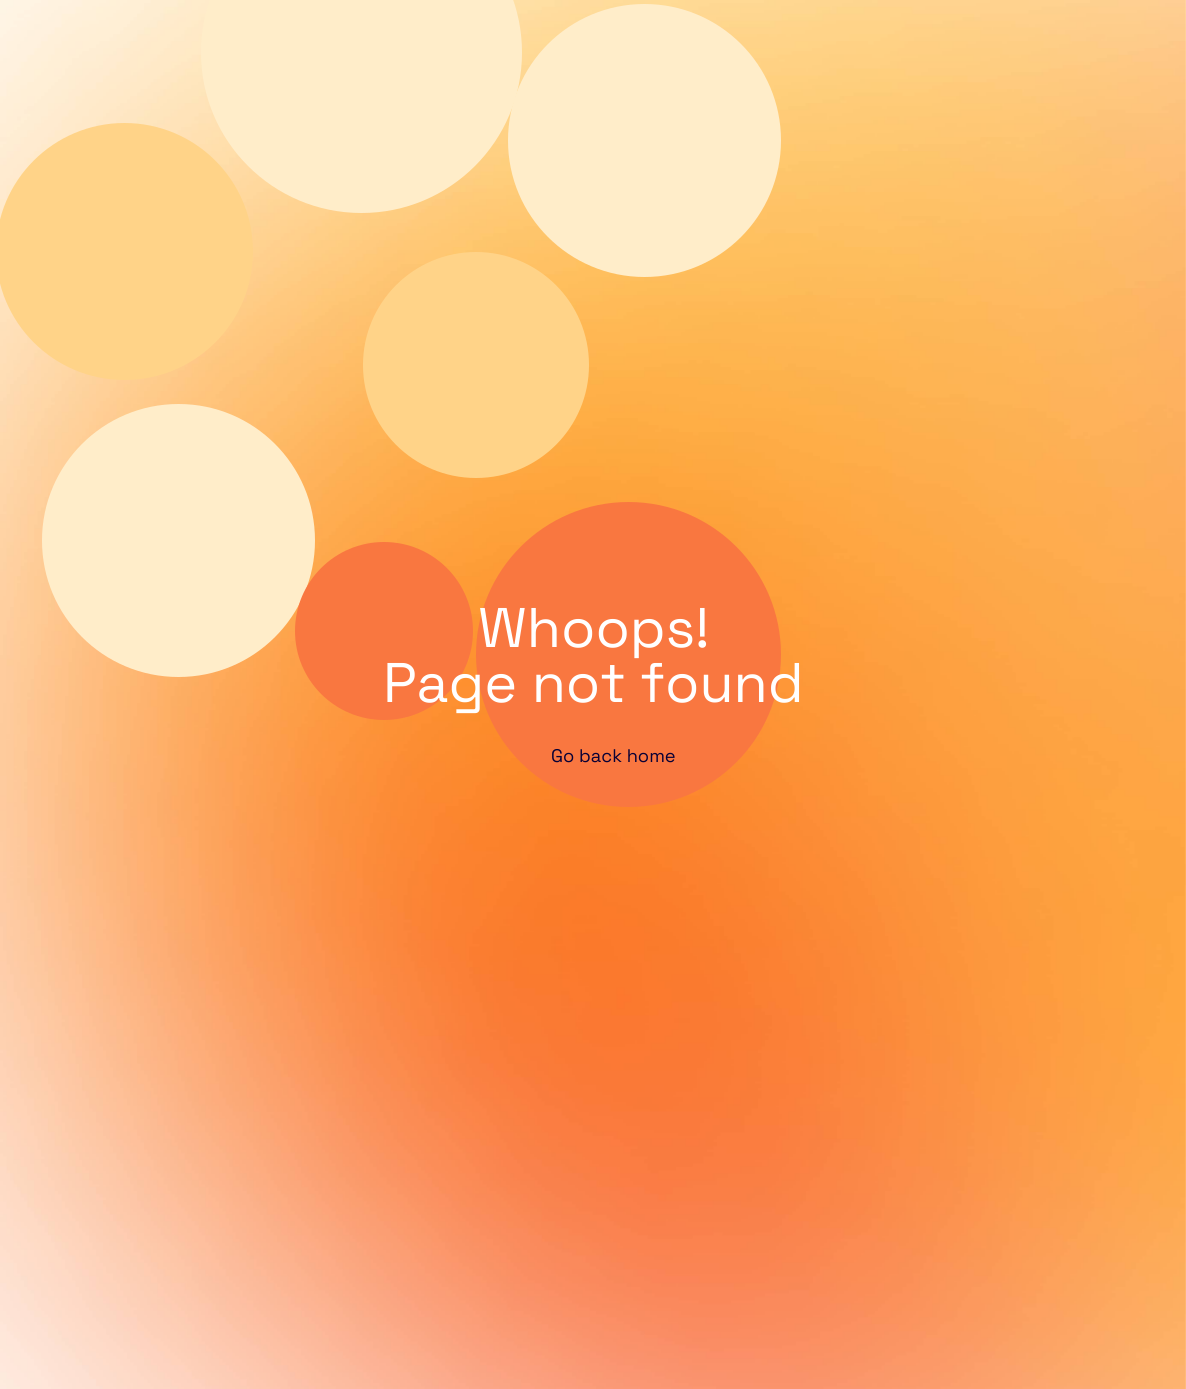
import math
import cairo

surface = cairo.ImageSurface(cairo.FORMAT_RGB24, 1186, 1389)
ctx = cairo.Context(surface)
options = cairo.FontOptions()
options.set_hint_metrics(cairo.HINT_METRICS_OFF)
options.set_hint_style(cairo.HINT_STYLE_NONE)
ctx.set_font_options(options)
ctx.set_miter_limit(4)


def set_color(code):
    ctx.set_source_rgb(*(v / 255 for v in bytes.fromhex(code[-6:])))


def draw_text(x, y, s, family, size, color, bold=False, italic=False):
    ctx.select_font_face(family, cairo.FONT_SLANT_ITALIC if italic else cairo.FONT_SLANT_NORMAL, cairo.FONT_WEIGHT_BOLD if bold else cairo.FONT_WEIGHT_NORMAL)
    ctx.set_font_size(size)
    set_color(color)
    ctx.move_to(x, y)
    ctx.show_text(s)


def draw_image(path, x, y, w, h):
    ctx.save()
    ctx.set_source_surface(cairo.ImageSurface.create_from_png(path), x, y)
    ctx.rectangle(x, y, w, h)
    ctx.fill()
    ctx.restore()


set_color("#ffffff")
ctx.paint()
draw_image("assets/img1.png", 0, 0, 1186, 1389)
set_color("#ffedc9")
ctx.arc(644.5, 140.5, 136.5, 0, 2 * math.pi)
ctx.fill()
ctx.arc(361.5, 52.5, 160.5, 0, 2 * math.pi)
ctx.fill()
set_color("#ffd388")
ctx.arc(124.5, 251.5, 128.5, 0, 2 * math.pi)
ctx.fill()
ctx.arc(476, 365, 113, 0, 2 * math.pi)
ctx.fill()
set_color("#ffedc9")
ctx.arc(178.5, 540.5, 136.5, 0, 2 * math.pi)
ctx.fill()
set_color("#f97740")
ctx.arc(384, 631, 89, 0, 2 * math.pi)
ctx.fill()
ctx.arc(628.5, 654.5, 152.5, 0, 2 * math.pi)
ctx.fill()
draw_text(478, 647, "Whoops!", "Space Grotesk", 55.75, "#ffffff")
draw_text(383, 702, "Page not found", "Space Grotesk", 55.75, "#ffffff")
draw_text(551, 762, "Go back home", "Space Grotesk", 18.25, "#090035")
surface.write_to_png("output.png")
